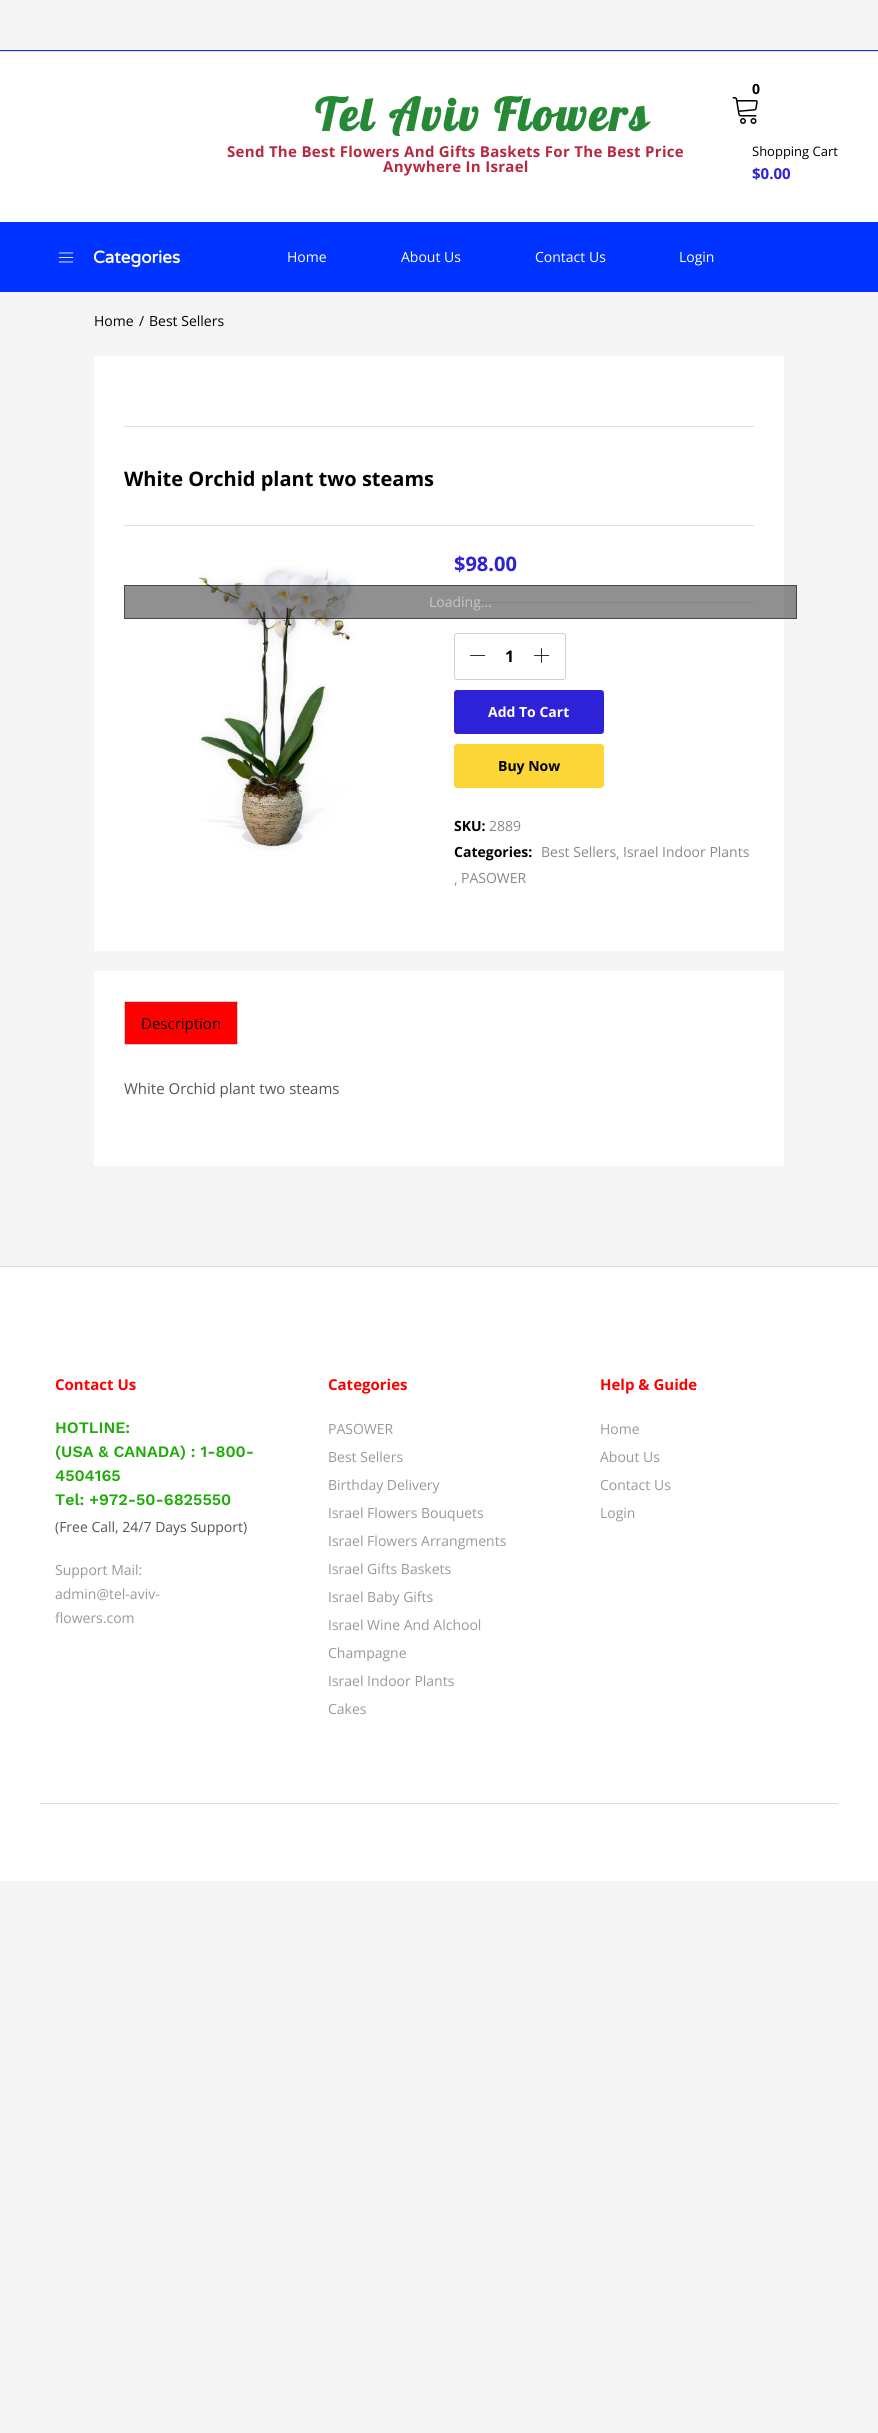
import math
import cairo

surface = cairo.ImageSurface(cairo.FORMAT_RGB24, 878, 2433)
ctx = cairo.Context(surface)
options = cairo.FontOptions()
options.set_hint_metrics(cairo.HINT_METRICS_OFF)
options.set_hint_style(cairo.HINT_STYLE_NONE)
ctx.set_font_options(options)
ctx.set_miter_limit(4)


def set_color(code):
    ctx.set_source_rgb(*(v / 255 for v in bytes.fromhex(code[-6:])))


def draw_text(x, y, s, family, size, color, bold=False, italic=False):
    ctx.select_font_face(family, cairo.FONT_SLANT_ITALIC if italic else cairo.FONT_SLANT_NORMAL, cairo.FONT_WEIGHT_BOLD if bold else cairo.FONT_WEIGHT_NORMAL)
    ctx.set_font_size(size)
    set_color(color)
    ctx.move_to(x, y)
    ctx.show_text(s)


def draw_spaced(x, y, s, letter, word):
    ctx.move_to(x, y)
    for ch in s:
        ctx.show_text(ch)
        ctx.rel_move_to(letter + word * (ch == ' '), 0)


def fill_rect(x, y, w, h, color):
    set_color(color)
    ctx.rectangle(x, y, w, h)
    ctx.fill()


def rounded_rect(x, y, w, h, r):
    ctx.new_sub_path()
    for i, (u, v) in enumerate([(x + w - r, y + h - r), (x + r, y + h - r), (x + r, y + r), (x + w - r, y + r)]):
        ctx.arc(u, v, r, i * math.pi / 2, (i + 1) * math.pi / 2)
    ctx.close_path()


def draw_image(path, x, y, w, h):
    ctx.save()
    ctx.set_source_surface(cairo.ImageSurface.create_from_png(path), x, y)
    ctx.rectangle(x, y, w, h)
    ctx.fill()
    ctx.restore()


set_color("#f5f5f5")
ctx.paint()
fill_rect(0, 52, 878, 170, "#ffffff")
fill_rect(0, 50, 878, 1, "#0033ff")
fill_rect(0, 51, 878, 1, "#e5e5e5")
ctx.select_font_face("Galada", cairo.FONT_SLANT_NORMAL, cairo.FONT_WEIGHT_BOLD)
ctx.set_font_size(45)
set_color("#268936")
draw_spaced(315, 131, "Tel Aviv Flowers", 3.25, 0)
ctx.select_font_face("Open Sans", cairo.FONT_SLANT_NORMAL, cairo.FONT_WEIGHT_BOLD)
ctx.set_font_size(15)
set_color("#b72940")
draw_spaced(227, 157, "Send The Best Flowers And Gifts Baskets For The Best Price", 0.3, 0)
draw_spaced(383, 172, "Anywhere In Israel", 0.3, 0)
draw_text(752, 94, "0", "Open Sans", 14, "#000000", bold=True)
draw_image("assets/img1.png", 732, 97, 26, 27)
draw_text(752, 156, "Shopping Cart", "Open Sans", 13, "#000000")
draw_text(752, 179, "$0.00", "Open Sans", 15, "#2e22d8", bold=True)
fill_rect(0, 222, 878, 70, "#0033ff")
draw_image("assets/img2.png", 58, 252, 16, 11)
draw_text(93, 263, "Categories", "Varela Round", 17, "#ffffff", bold=True)
draw_text(287, 262, "Home", "Open Sans", 14, "#ffffff")
draw_text(401, 262, "About Us", "Open Sans", 14, "#ffffff")
draw_text(535, 262, "Contact Us", "Open Sans", 14, "#ffffff")
draw_text(679, 262, "Login", "Open Sans", 14, "#ffffff")
draw_text(94, 326, "Home", "Open Sans", 14, "#000000")
draw_text(139, 326, "/", "Open Sans", 14, "#000000")
draw_text(149, 326, "Best Sellers", "Open Sans", 14, "#000000")
fill_rect(94, 356, 690, 595, "#ffffff")
fill_rect(124, 426, 630, 1, "#e0e0e0")
draw_text(124, 486, "White Orchid plant two steams", "Open Sans", 20, "#000000", bold=True)
fill_rect(124, 525, 630, 1, "#e0e0e0")
draw_text(454, 571, "$98.00", "Open Sans", 20, "#2e22d8", bold=True)
fill_rect(454, 602, 300, 1, "#e5e5e5")
rounded_rect(454.5, 633.5, 111, 46, 2.5)
set_color("#d0d0d0")
ctx.set_line_width(1)
ctx.stroke()
draw_image("assets/img3.png", 470, 655, 16, 1)
draw_text(505, 662, "1", "Open Sans", 16, "#000000", bold=True)
draw_image("assets/img4.png", 534, 647, 16, 16)
set_color("#2e22d8")
rounded_rect(454, 690, 150, 44, 3)
ctx.fill()
draw_text(488, 717, "Add To Cart", "Open Sans", 14, "#ffffff", bold=True)
set_color("#fcd537")
rounded_rect(454, 744, 150, 44, 3)
ctx.fill()
draw_text(498, 771, "Buy Now", "Open Sans", 14, "#000000", bold=True)
draw_text(454, 831, "SKU:", "Open Sans", 14, "#000000", bold=True)
draw_text(489, 831, "2889", "Open Sans", 14, "#888888")
draw_text(454, 857, "Categories:", "Open Sans", 14, "#000000", bold=True)
draw_text(541, 857, "Best Sellers", "Open Sans", 14, "#888888")
draw_text(616, 858, ",", "Open Sans", 14, "#888888")
draw_text(623, 857, "Israel Indoor Plants", "Open Sans", 14, "#888888")
draw_text(454, 884, ",", "Open Sans", 14, "#888888")
draw_text(461, 883, "PASOWER", "Open Sans", 14, "#888888")
draw_image("assets/img5.png", 198, 566, 157, 285)
ctx.set_source_rgba(0.133, 0.133, 0.133, 0.5)
ctx.rectangle(124, 585, 673, 34)
ctx.fill()
ctx.rectangle(124.5, 585.5, 672, 33)
ctx.set_source_rgba(0, 0, 0, 0.5)
ctx.stroke()
draw_text(429, 607, "Loading...", "Open Sans", 14, "#c7c7c7")
fill_rect(94, 971, 690, 195, "#ffffff")
ctx.rectangle(124.5, 1001.5, 113, 43)
set_color("#d0d0d0")
ctx.stroke()
fill_rect(125, 1002, 112, 42, "#ff0000")
draw_text(141, 1029, "Description", "Open Sans", 15, "#000000")
draw_text(124, 1094, "White Orchid plant two steams", "Open Sans", 15, "#555555")
fill_rect(0, 1267, 878, 614, "#ffffff")
fill_rect(0, 1266, 878, 1, "#dddddd")
draw_text(55, 1390, "Contact Us", "Open Sans", 15, "#ff0000", bold=True)
draw_text(55, 1433, "HOTLINE:", "Work Sans SemiBold", 16, "#21ab0b")
draw_text(55, 1457, "(USA & CANADA) : 1-800-", "Work Sans SemiBold", 16, "#21ab0b")
draw_text(55, 1481, "4504165", "Work Sans SemiBold", 16, "#21ab0b")
draw_text(55, 1505, "Tel: +972-50-6825550", "Work Sans SemiBold", 16, "#21ab0b")
draw_text(55, 1532, "(Free Call, 24/7 Days Support)", "Open Sans", 14, "#555555")
draw_text(55, 1575, "Support Mail:", "Open Sans", 14, "#999999")
draw_text(55, 1599, "admin@tel-aviv-", "Open Sans", 14, "#999999")
draw_text(55, 1623, "flowers.com", "Open Sans", 14, "#999999")
draw_text(328, 1390, "Categories", "Open Sans", 15, "#ff0000", bold=True)
draw_text(328, 1434, "PASOWER", "Open Sans", 14, "#999999")
draw_text(328, 1462, "Best Sellers", "Open Sans", 14, "#999999")
draw_text(328, 1490, "Birthday Delivery", "Open Sans", 14, "#999999")
draw_text(328, 1518, "Israel Flowers Bouquets", "Open Sans", 14, "#999999")
draw_text(328, 1546, "Israel Flowers Arrangments", "Open Sans", 14, "#999999")
draw_text(328, 1574, "Israel Gifts Baskets", "Open Sans", 14, "#999999")
draw_text(328, 1602, "Israel Baby Gifts", "Open Sans", 14, "#999999")
draw_text(328, 1630, "Israel Wine And Alchool", "Open Sans", 14, "#999999")
draw_text(328, 1658, "Champagne", "Open Sans", 14, "#999999")
draw_text(328, 1686, "Israel Indoor Plants", "Open Sans", 14, "#999999")
draw_text(328, 1714, "Cakes", "Open Sans", 14, "#999999")
draw_text(600, 1390, "Help & Guide", "Open Sans", 15, "#ff0000", bold=True)
draw_text(600, 1434, "Home", "Open Sans", 14, "#999999")
draw_text(600, 1462, "About Us", "Open Sans", 14, "#999999")
draw_text(600, 1490, "Contact Us", "Open Sans", 14, "#999999")
draw_text(600, 1518, "Login", "Open Sans", 14, "#999999")
fill_rect(40, 1803, 798, 1, "#dddddd")
surface.write_to_png("output.png")
